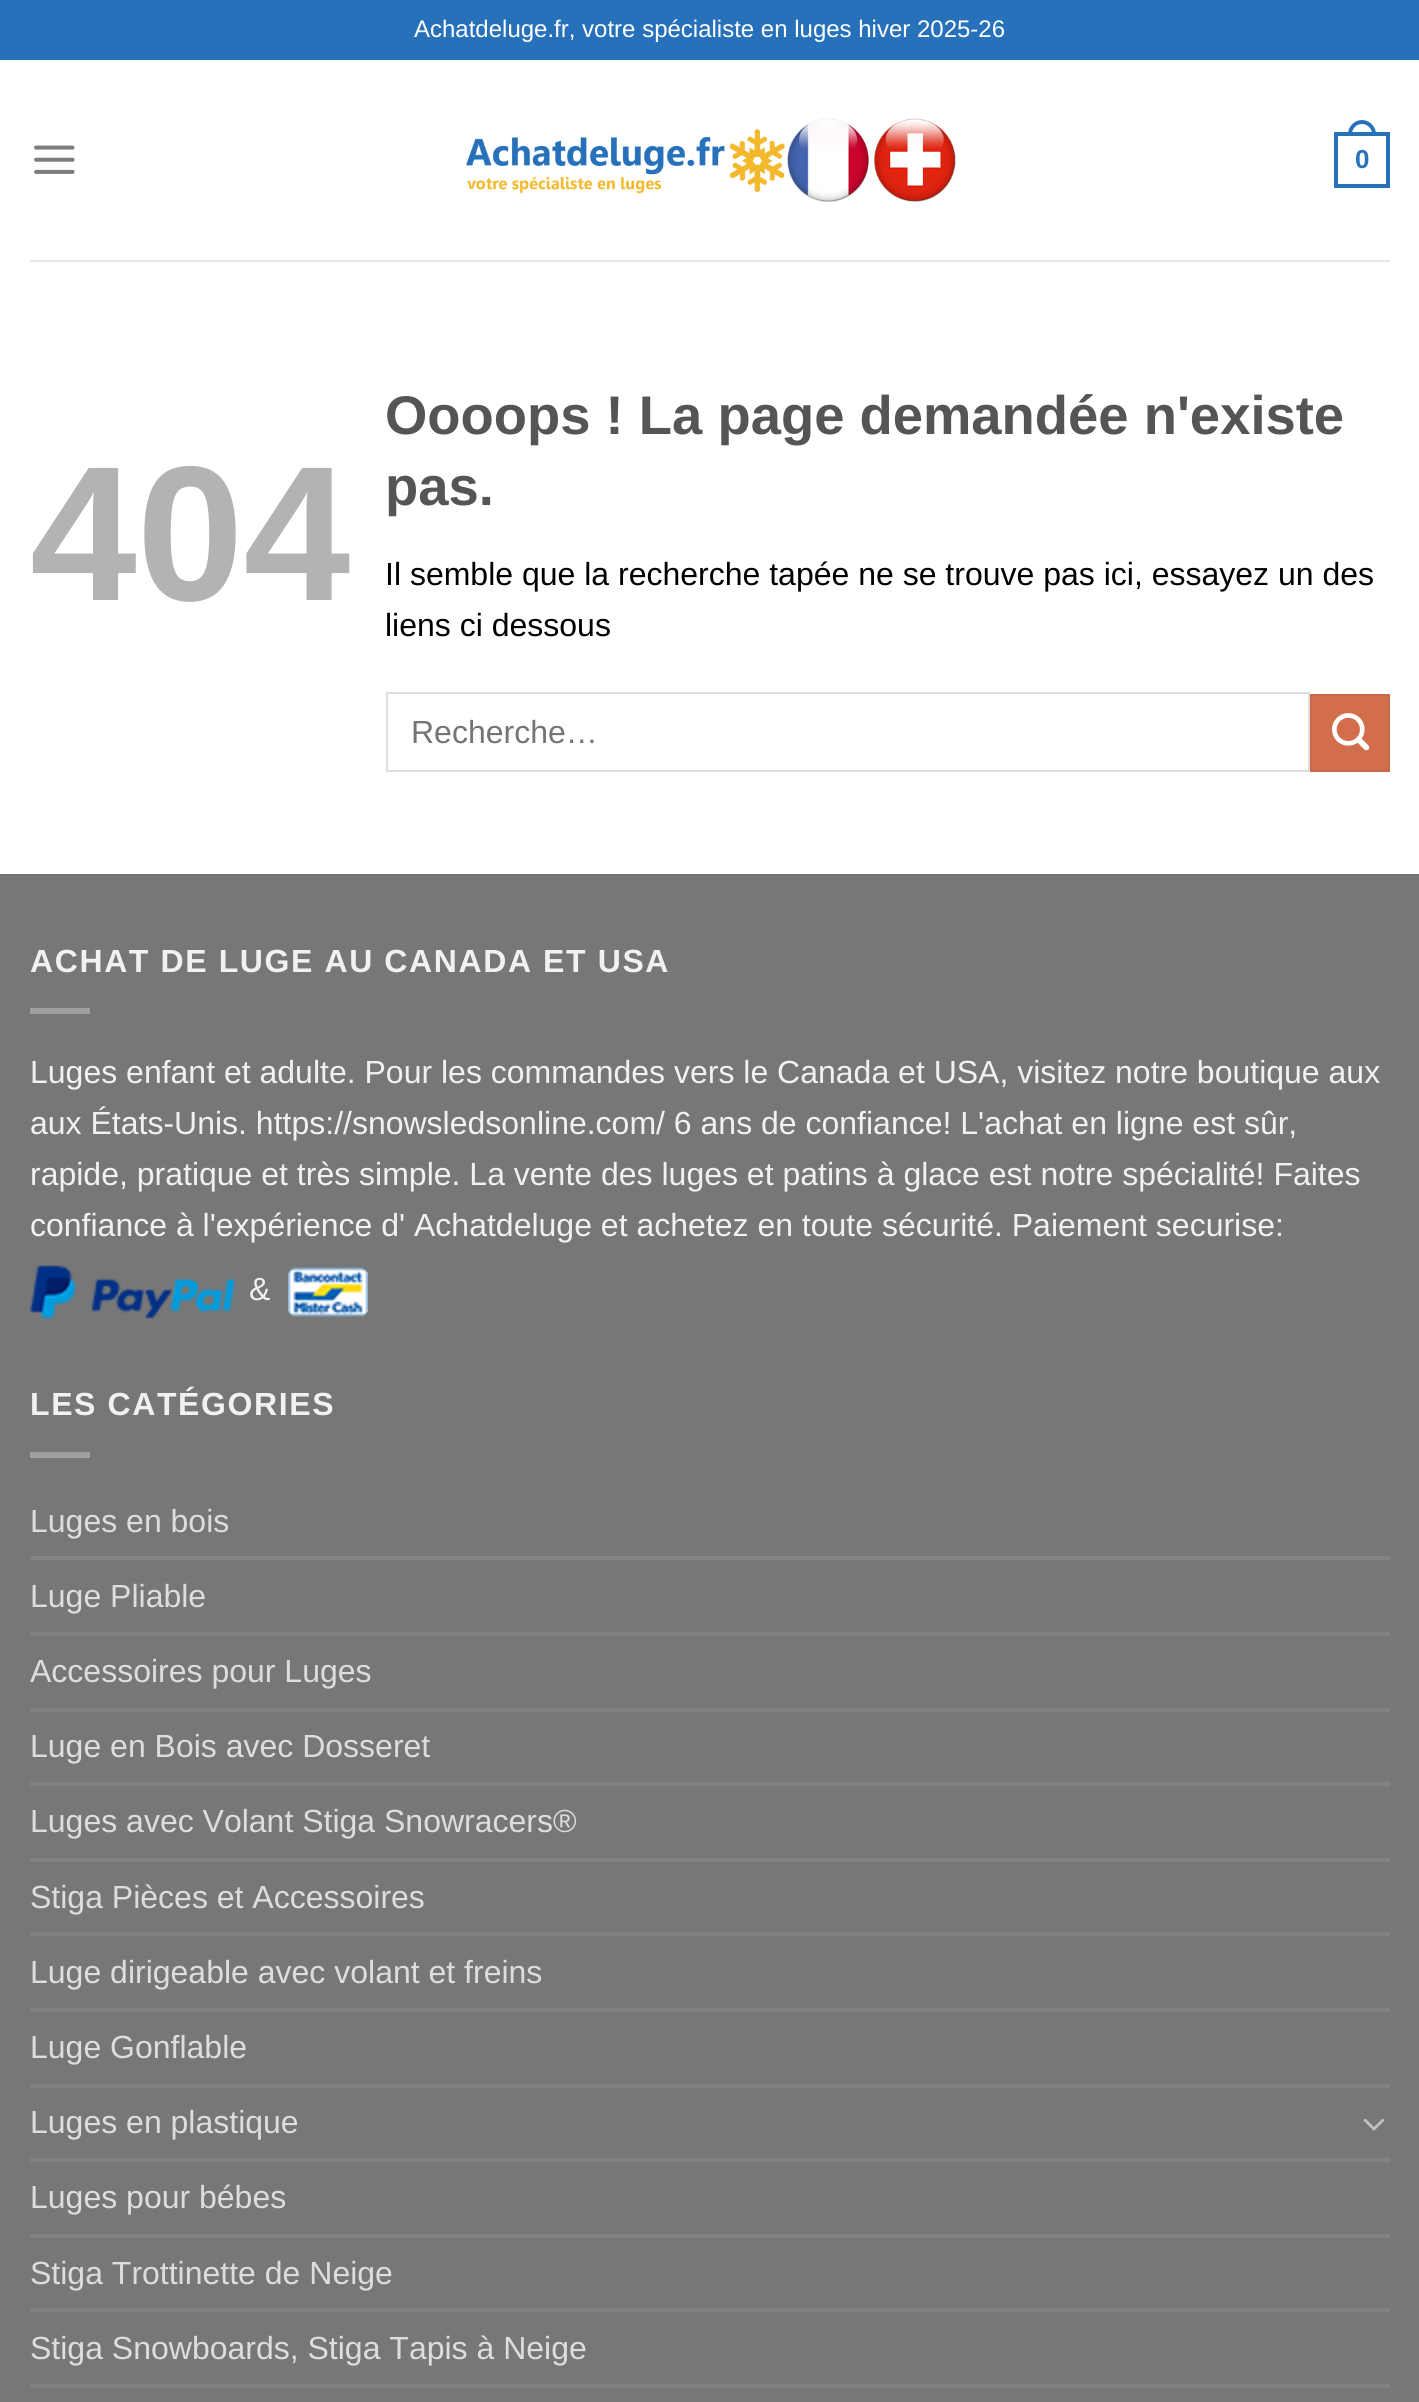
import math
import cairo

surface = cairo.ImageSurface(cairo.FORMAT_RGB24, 1419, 2402)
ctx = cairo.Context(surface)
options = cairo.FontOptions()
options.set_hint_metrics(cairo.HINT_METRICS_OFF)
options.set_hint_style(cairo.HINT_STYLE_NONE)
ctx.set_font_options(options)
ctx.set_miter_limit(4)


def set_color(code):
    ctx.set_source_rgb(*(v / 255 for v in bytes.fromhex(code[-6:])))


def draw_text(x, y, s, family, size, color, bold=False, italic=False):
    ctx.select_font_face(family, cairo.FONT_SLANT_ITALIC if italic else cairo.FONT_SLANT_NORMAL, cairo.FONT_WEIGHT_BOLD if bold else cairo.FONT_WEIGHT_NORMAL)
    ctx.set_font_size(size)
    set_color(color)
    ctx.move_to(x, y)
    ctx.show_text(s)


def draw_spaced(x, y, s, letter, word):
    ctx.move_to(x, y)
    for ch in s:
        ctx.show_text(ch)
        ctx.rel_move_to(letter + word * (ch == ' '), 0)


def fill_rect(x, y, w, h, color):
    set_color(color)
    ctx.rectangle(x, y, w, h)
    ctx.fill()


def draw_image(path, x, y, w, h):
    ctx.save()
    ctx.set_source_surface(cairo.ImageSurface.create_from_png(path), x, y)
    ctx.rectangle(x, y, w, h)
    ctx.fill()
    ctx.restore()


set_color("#ffffff")
ctx.paint()
fill_rect(0, 0, 1419, 60, "#2771ba")
draw_text(414, 37, "Achatdeluge.fr, votre spécialiste en luges hiver 2025-26", "Liberation Sans", 24, "#ffffff")
draw_image("assets/img1.png", 34, 145, 41, 29)
draw_image("assets/img2.png", 466, 118, 490, 84)
ctx.rectangle(1336, 134, 52, 52)
set_color("#2771ba")
ctx.set_line_width(4)
ctx.stroke()
ctx.set_fill_rule(cairo.FILL_RULE_EVEN_ODD)
ctx.new_path()
ctx.move_to(1362, 120)
ctx.curve_to(1369.5, 120, 1376, 126.5, 1376, 134)
ctx.line_to(1376, 136)
ctx.line_to(1348, 136)
ctx.line_to(1348, 134)
ctx.curve_to(1348, 126.5, 1354.5, 120, 1362, 120)
ctx.close_path()
ctx.move_to(1362, 124)
ctx.curve_to(1367.5, 124, 1372, 128.5, 1372, 134)
ctx.line_to(1372, 136)
ctx.line_to(1352, 136)
ctx.line_to(1352, 134)
ctx.curve_to(1352, 128.5, 1356.5, 124, 1362, 124)
ctx.close_path()
ctx.fill()
draw_text(1355, 168, "0", "Liberation Sans", 26, "#2771ba", bold=True)
fill_rect(30, 260, 1360, 2, "#e6e6e6")
draw_text(30, 600, "404", "Liberation Sans", 192, "#b3b3b3", bold=True)
draw_text(385, 434, "Oooops ! La page demandée n'existe", "Liberation Sans", 54.4, "#555555", bold=True)
draw_text(385, 505, "pas.", "Liberation Sans", 54.4, "#555555", bold=True)
draw_text(385, 585, "Il semble que la recherche tapée ne se trouve pas ici, essayez un des", "Liberation Sans", 32, "#000000")
draw_text(385, 636, "liens ci dessous", "Liberation Sans", 32, "#000000")
ctx.rectangle(387, 693, 922, 78)
set_color("#dddddd")
ctx.set_line_width(2)
ctx.stroke()
draw_text(411, 743, "Recherche…", "Liberation Sans", 32, "#757575")
set_color("#d26e4b")
ctx.rectangle(1311, 695, 78, 76)
ctx.fill_preserve()
set_color("#c86947")
ctx.stroke()
draw_image("assets/img3.png", 1332, 713, 38, 38)
fill_rect(0, 876, 1419, 1526, "#777777")
fill_rect(0, 874, 1419, 2, "#717171")
ctx.select_font_face("Liberation Sans", cairo.FONT_SLANT_NORMAL, cairo.FONT_WEIGHT_BOLD)
set_color("#f1f1f1")
draw_spaced(30, 972, "ACHAT DE LUGE AU CANADA ET USA", 1.6, 0)
fill_rect(30, 1008, 60, 6, "#a0a0a0")
draw_text(30, 1083, "Luges enfant et adulte. Pour les commandes vers le Canada et USA, visitez notre boutique aux", "Liberation Sans", 32, "#f1f1f1")
draw_text(30, 1134, "aux États-Unis. https://snowsledsonline.com/ 6 ans de confiance! L'achat en ligne est sûr,", "Liberation Sans", 32, "#f1f1f1")
draw_text(30, 1185, "rapide, pratique et très simple. La vente des luges et patins à glace est notre spécialité! Faites", "Liberation Sans", 32, "#f1f1f1")
draw_text(30, 1236, "confiance à l'expérience d' Achatdeluge et achetez en toute sécurité. Paiement securise:", "Liberation Sans", 32, "#f1f1f1")
draw_image("assets/img4.png", 30, 1265, 205, 54)
draw_text(249, 1300, "&", "Liberation Sans", 32, "#f1f1f1")
draw_image("assets/img5.png", 288, 1267, 80, 50)
ctx.select_font_face("Liberation Sans", cairo.FONT_SLANT_NORMAL, cairo.FONT_WEIGHT_BOLD)
draw_spaced(30, 1415, "LES CATÉGORIES", 1.6, 0)
fill_rect(30, 1452, 60, 6, "#a0a0a0")
fill_rect(30, 1556, 1360, 2, "#858585")
draw_text(30, 1532, "Luges en bois", "Liberation Sans", 32, "#dddddd")
fill_rect(30, 1558, 1360, 2, "#828282")
fill_rect(30, 1632, 1360, 4, "#828282")
draw_text(30, 1607, "Luge Pliable", "Liberation Sans", 32, "#dddddd")
fill_rect(30, 1708, 1360, 4, "#828282")
draw_text(30, 1682, "Accessoires pour Luges", "Liberation Sans", 32, "#dddddd")
fill_rect(30, 1782, 1360, 4, "#828282")
draw_text(30, 1757, "Luge en Bois avec Dosseret", "Liberation Sans", 32, "#dddddd")
fill_rect(30, 1858, 1360, 4, "#828282")
draw_text(30, 1832, "Luges avec Volant Stiga Snowracers®", "Liberation Sans", 32, "#dddddd")
fill_rect(30, 1932, 1360, 4, "#828282")
draw_text(30, 1908, "Stiga Pièces et Accessoires", "Liberation Sans", 32, "#dddddd")
fill_rect(30, 2008, 1360, 4, "#828282")
draw_text(30, 1983, "Luge dirigeable avec volant et freins", "Liberation Sans", 32, "#dddddd")
fill_rect(30, 2084, 1360, 4, "#828282")
draw_text(30, 2058, "Luge Gonflable", "Liberation Sans", 32, "#dddddd")
fill_rect(30, 2158, 1360, 4, "#828282")
draw_text(30, 2133, "Luges en plastique", "Liberation Sans", 32, "#dddddd")
draw_image("assets/img6.png", 1363, 2118, 22, 13)
fill_rect(30, 2234, 1360, 4, "#828282")
draw_text(30, 2208, "Luges pour bébes", "Liberation Sans", 32, "#dddddd")
fill_rect(30, 2308, 1360, 4, "#828282")
draw_text(30, 2284, "Stiga Trottinette de Neige", "Liberation Sans", 32, "#dddddd")
fill_rect(30, 2384, 1360, 4, "#828282")
draw_text(30, 2359, "Stiga Snowboards, Stiga Tapis à Neige", "Liberation Sans", 32, "#dddddd")
surface.write_to_png("output.png")
